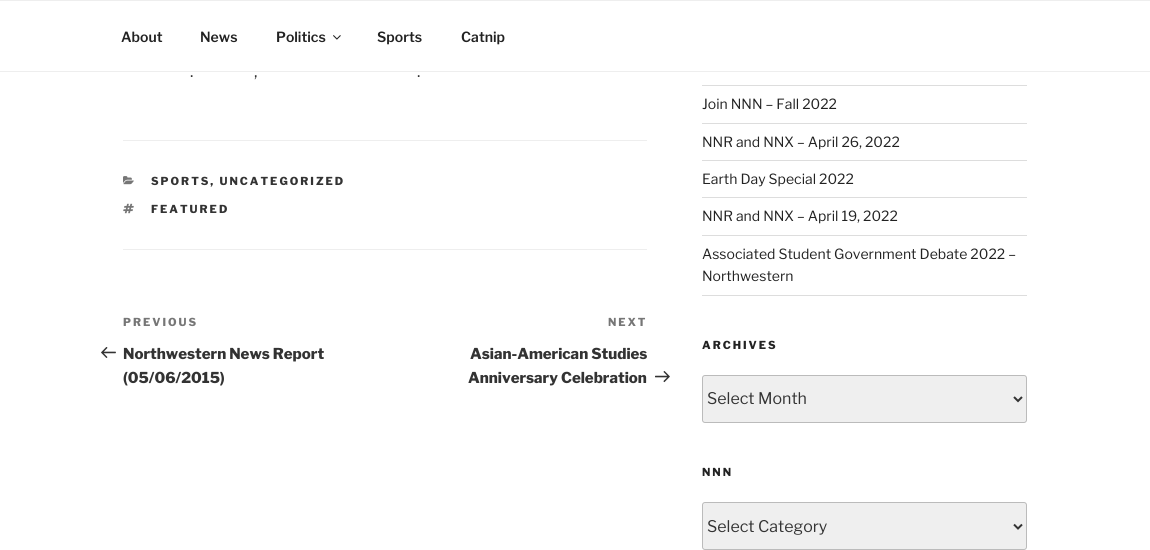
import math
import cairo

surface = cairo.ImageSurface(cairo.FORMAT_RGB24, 1150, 550)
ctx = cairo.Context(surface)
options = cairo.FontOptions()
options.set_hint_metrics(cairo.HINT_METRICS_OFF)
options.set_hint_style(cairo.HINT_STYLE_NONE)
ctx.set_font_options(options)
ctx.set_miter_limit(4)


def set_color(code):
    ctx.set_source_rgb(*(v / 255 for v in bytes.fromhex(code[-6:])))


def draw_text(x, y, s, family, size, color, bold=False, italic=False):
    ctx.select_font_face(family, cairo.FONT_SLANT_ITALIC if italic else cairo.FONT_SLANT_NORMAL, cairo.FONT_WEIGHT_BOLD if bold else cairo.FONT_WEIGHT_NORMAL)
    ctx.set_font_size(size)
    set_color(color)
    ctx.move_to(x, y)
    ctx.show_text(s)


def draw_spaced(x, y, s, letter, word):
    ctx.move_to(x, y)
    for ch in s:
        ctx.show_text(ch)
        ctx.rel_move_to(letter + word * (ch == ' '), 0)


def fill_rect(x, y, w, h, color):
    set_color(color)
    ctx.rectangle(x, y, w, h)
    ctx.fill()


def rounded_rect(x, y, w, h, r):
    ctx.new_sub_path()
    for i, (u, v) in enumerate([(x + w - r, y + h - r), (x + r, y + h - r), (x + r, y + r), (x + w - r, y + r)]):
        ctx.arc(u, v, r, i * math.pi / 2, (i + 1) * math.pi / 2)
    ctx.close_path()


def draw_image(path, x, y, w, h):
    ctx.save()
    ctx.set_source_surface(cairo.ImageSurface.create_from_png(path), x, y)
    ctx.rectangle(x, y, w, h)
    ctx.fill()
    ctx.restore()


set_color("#ffffff")
ctx.paint()
fill_rect(0, 0, 1150, 1, "#eeeeee")
fill_rect(0, 71, 1150, 1, "#eeeeee")
draw_text(121, 42, "About", "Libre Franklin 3 Thin", 14, "#222222")
draw_text(200, 42, "News", "Libre Franklin 3 Thin", 14, "#222222")
draw_text(276, 42, "Politics", "Libre Franklin 3 Thin", 14, "#222222")
draw_image("assets/img1.png", 333, 35, 8, 5)
draw_text(377, 42, "Sports", "Libre Franklin 3 Thin", 14, "#222222")
draw_text(461, 42, "Catnip", "Libre Franklin 3 Thin", 14, "#222222")
draw_text(190, 77, ".", "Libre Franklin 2 Thin", 16, "#333333")
draw_text(254, 77, ",", "Libre Franklin 2 Thin", 16, "#333333")
draw_text(417, 77, ".", "Libre Franklin 2 Thin", 16, "#333333")
fill_rect(123, 140, 524, 1, "#eeeeee")
fill_rect(123, 249, 524, 1, "#eeeeee")
draw_image("assets/img2.png", 123, 176, 11, 9)
ctx.select_font_face("Libre Franklin Thin")
ctx.set_font_size(11)
set_color("#333333")
draw_spaced(151, 185, "SPORTS, UNCATEGORIZED", 2, 0)
draw_image("assets/img3.png", 123, 203, 11, 11)
draw_spaced(151, 213, "FEATURED", 2, 0)
set_color("#767676")
draw_spaced(123, 326, "PREVIOUS", 2, 0)
draw_image("assets/img4.png", 101, 347, 15, 11)
draw_text(123, 359, "Northwestern News Report", "Libre Franklin Thin", 15, "#333333")
draw_text(123, 383, "(05/06/2015)", "Libre Franklin Thin", 15, "#333333")
ctx.set_font_size(11)
set_color("#767676")
draw_spaced(608, 326, "NEXT", 2, 0)
draw_text(470, 359, "Asian-American Studies", "Libre Franklin Thin", 15, "#333333")
draw_text(468, 383, "Anniversary Celebration", "Libre Franklin Thin", 15, "#333333")
draw_image("assets/img5.png", 655, 371, 15, 12)
fill_rect(702, 85, 325, 1, "#dddddd")
fill_rect(702, 123, 325, 1, "#dddddd")
draw_text(702, 109, "Join NNN – Fall 2022", "Libre Franklin 2 Thin", 14, "#222222")
fill_rect(702, 160, 325, 1, "#dddddd")
draw_text(702, 147, "NNR and NNX – April 26, 2022", "Libre Franklin 2 Thin", 14, "#222222")
fill_rect(702, 197, 325, 1, "#dddddd")
draw_text(702, 184, "Earth Day Special 2022", "Libre Franklin 2 Thin", 14, "#222222")
fill_rect(702, 235, 325, 1, "#dddddd")
draw_text(702, 221, "NNR and NNX – April 19, 2022", "Libre Franklin 2 Thin", 14, "#222222")
fill_rect(702, 295, 325, 1, "#dddddd")
draw_text(702, 259, "Associated Student Government Debate 2022 –", "Libre Franklin 2 Thin", 14, "#222222")
draw_text(702, 281, "Northwestern", "Libre Franklin 2 Thin", 14, "#222222")
ctx.select_font_face("Libre Franklin Thin")
ctx.set_font_size(11)
draw_spaced(702, 349, "ARCHIVES", 2, 0)
set_color("#efefef")
rounded_rect(702.5, 375.5, 324, 47, 2.5)
ctx.fill_preserve()
set_color("#bbbbbb")
ctx.set_line_width(1)
ctx.stroke()
ctx.new_path()
ctx.move_to(1014, 397)
ctx.line_to(1018, 401)
ctx.line_to(1022, 397)
set_color("#333333")
ctx.set_line_width(2)
ctx.stroke()
draw_text(707, 404, "Select Month", "Libre Franklin 2 Thin", 16, "#333333")
ctx.select_font_face("Libre Franklin Thin")
ctx.set_font_size(11)
set_color("#222222")
draw_spaced(702, 476, "NNN", 2, 0)
set_color("#efefef")
rounded_rect(702.5, 502.5, 324, 47, 2.5)
ctx.fill_preserve()
set_color("#bbbbbb")
ctx.set_line_width(1)
ctx.stroke()
ctx.new_path()
ctx.move_to(1014, 524.5)
ctx.line_to(1018, 528.5)
ctx.line_to(1022, 524.5)
set_color("#333333")
ctx.set_line_width(2)
ctx.stroke()
draw_text(707, 532, "Select Category", "Libre Franklin 2 Thin", 16, "#333333")
surface.write_to_png("output.png")
